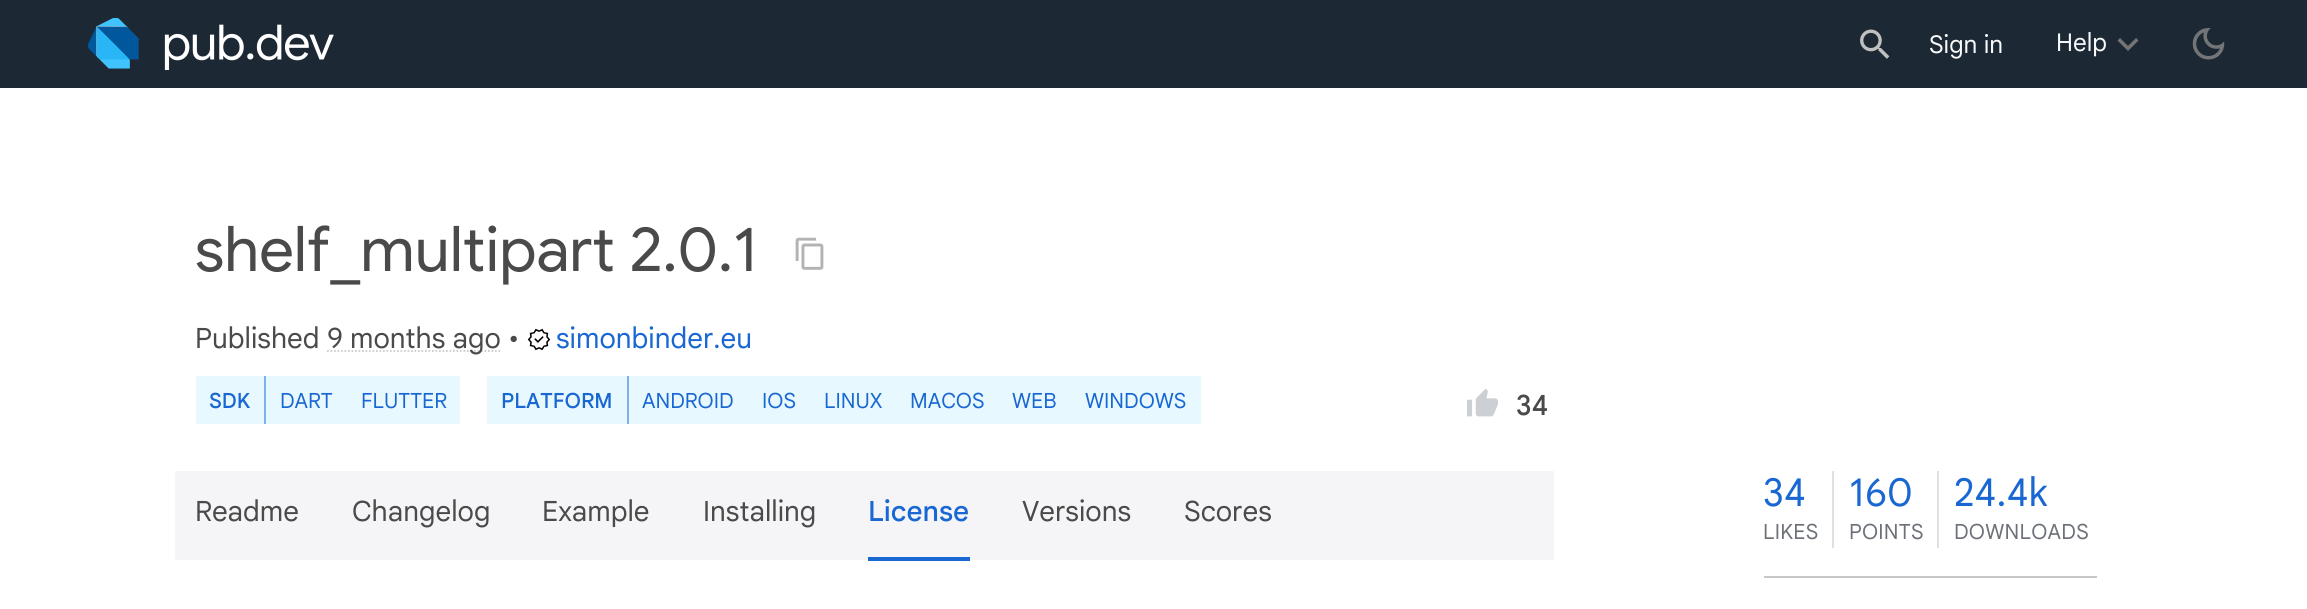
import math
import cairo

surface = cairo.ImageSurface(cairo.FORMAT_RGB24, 2307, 609)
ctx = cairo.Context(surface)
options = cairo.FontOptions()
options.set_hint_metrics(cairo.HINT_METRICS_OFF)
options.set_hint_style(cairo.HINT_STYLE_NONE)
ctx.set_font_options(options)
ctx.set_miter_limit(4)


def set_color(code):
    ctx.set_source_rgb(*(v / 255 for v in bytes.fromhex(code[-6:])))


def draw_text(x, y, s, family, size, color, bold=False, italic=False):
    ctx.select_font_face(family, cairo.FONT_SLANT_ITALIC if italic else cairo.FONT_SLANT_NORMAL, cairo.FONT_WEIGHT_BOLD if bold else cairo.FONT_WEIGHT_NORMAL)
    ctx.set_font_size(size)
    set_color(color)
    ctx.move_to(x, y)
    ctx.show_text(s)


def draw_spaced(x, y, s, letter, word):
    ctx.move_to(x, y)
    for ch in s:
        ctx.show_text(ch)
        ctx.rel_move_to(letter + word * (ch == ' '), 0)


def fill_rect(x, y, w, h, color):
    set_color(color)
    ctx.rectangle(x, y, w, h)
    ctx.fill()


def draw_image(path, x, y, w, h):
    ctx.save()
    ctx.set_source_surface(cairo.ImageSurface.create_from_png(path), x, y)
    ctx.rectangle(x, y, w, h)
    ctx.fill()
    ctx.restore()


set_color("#ffffff")
ctx.paint()
fill_rect(0, 0, 2307, 88, "#1c2834")
draw_image("assets/img1.png", 88, 18, 246, 52)
draw_image("assets/img2.png", 1860, 29, 30, 30)
draw_text(1929, 53, "Sign in", "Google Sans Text", 24.5, "#f8f9fa")
draw_text(2056, 51, "Help", "Google Sans Text", 24.5, "#f8f9fa")
set_color("#757575")
ctx.new_path()
ctx.move_to(2120, 38)
ctx.line_to(2128, 46)
ctx.line_to(2136, 38)
ctx.line_to(2138.5, 40.5)
ctx.line_to(2128, 51)
ctx.line_to(2117.5, 40.5)
ctx.close_path()
ctx.fill()
draw_image("assets/img3.png", 2192, 28, 33, 32)
draw_text(195, 271, "shelf_multipart 2.0.1", "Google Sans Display", 63, "#4a4a4a")
draw_image("assets/img4.png", 795, 237, 29, 33)
draw_text(195, 348, "Published", "Google Sans Text", 28, "#4a4a4a")
ctx.new_path()
ctx.move_to(327, 351)
ctx.line_to(500.5, 351)
set_color("#cccccc")
ctx.set_line_width(1.8)
ctx.set_dash([1.75, 1.75])
ctx.stroke()
draw_text(327, 348, "9 months ago •", "Google Sans Text", 28, "#4a4a4a")
draw_image("assets/img5.png", 527, 328, 24, 23)
draw_text(556, 348, "simonbinder.eu", "Google Sans Text", 28, "#1967d2")
fill_rect(196, 376, 264, 48, "#e7f8ff")
fill_rect(264, 376, 2, 48, "#80b0e9")
draw_text(209, 408, "SDK", "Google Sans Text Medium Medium", 21, "#1967d2")
draw_text(280, 408, "DART", "Google Sans Text", 21, "#1967d2")
draw_text(361, 408, "FLUTTER", "Google Sans Text", 21, "#1967d2")
fill_rect(487, 376, 714, 48, "#e7f8ff")
fill_rect(627, 376, 2, 48, "#80b0e9")
draw_text(501, 408, "PLATFORM", "Google Sans Text Medium Medium", 21, "#1967d2")
draw_text(642, 408, "ANDROID", "Google Sans Text", 21, "#1967d2")
draw_text(762, 408, "IOS", "Google Sans Text", 21, "#1967d2")
draw_text(824, 408, "LINUX", "Google Sans Text", 21, "#1967d2")
draw_text(910, 408, "MACOS", "Google Sans Text", 21, "#1967d2")
draw_text(1012, 408, "WEB", "Google Sans Text", 21, "#1967d2")
draw_text(1085, 408, "WINDOWS", "Google Sans Text", 21, "#1967d2")
draw_image("assets/img6.png", 1467, 388, 31, 29)
draw_text(1516, 415, "34", "Google Sans Text Medium Medium", 28, "#4a4a4a")
fill_rect(175, 471, 1379, 89, "#f5f5f7")
draw_text(195, 521, "Readme", "Google Sans Text", 28, "#4a4a4a")
draw_text(352, 521, "Changelog", "Google Sans Text", 28, "#4a4a4a")
draw_text(542, 521, "Example", "Google Sans Text", 28, "#4a4a4a")
draw_text(703, 521, "Installing", "Google Sans Text", 28, "#4a4a4a")
fill_rect(868, 557, 102, 4, "#1967d2")
draw_text(868, 521, "License", "Google Sans Text Medium Medium", 28, "#1967d2")
draw_text(1022, 521, "Versions", "Google Sans Text", 28, "#4a4a4a")
draw_text(1184, 521, "Scores", "Google Sans Text", 28, "#4a4a4a")
fill_rect(1832, 471, 2, 77, "#e0e0e0")
draw_text(1763, 506, "34", "Google Sans Text", 38.5, "#1967d2")
ctx.set_font_size(21)
set_color("#6d7278")
draw_spaced(1763, 539, "LIKES", 0.25, 0)
fill_rect(1937, 471, 2, 77, "#e0e0e0")
draw_text(1849, 506, "160", "Google Sans Text", 38.5, "#1967d2")
ctx.set_font_size(21)
set_color("#6d7278")
draw_spaced(1849, 539, "POINTS", 0.25, 0)
draw_text(1954, 506, "24.4k", "Google Sans Text", 38.5, "#1967d2")
ctx.set_font_size(21)
set_color("#6d7278")
draw_spaced(1954, 539, "DOWNLOADS", 0.25, 0)
fill_rect(1764, 576, 333, 2, "#c8c8ca")
surface.write_to_png("output.png")
